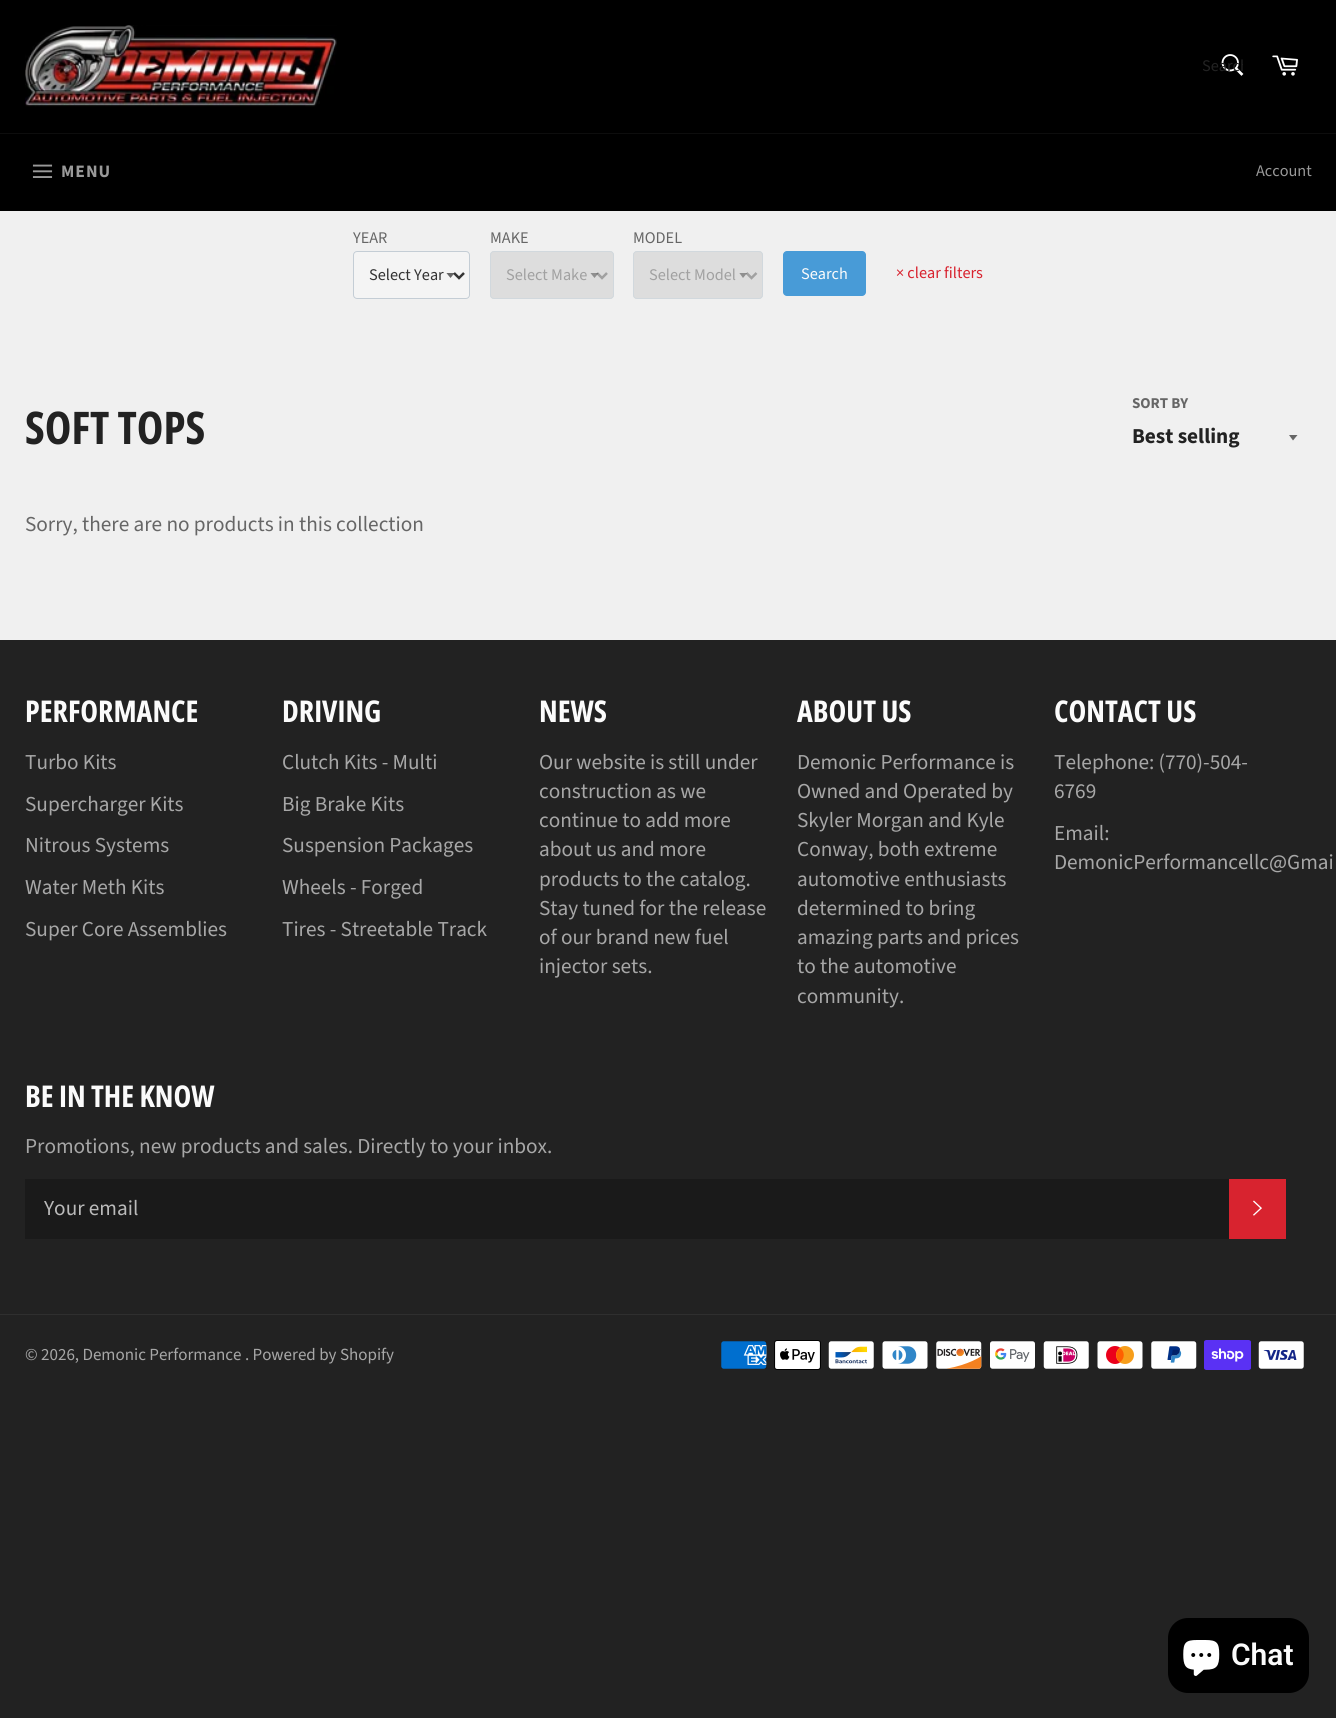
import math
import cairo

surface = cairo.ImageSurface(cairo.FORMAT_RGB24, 1336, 1718)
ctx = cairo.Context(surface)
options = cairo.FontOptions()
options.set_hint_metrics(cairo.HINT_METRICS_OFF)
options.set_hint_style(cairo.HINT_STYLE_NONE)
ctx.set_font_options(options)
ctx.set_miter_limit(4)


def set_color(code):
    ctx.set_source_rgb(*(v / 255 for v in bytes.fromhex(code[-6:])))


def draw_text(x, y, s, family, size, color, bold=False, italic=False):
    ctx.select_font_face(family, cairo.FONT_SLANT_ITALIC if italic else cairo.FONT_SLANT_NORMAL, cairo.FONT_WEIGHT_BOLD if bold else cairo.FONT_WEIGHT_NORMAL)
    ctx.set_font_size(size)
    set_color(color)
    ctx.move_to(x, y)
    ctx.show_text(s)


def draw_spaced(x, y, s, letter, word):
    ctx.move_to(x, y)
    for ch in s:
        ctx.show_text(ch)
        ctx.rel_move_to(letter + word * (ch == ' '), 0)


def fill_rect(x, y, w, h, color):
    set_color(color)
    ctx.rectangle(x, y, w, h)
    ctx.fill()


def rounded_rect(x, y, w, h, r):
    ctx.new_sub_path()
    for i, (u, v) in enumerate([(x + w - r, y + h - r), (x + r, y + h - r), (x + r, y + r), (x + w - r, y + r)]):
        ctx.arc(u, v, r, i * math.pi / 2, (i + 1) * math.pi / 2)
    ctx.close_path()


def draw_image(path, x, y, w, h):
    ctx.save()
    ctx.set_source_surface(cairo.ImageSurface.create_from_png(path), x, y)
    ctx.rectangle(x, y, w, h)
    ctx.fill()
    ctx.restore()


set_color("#222222")
ctx.paint()
fill_rect(0, 211, 1336, 429, "#f0f0f0")
fill_rect(0, 0, 1336, 133, "#000000")
draw_image("assets/img1.png", 25, 25, 312, 82)
draw_image("assets/img2.png", 1221, 54, 23, 22)
ctx.save()
ctx.rectangle(1203, 55, 40, 23)
ctx.clip()
draw_text(1202, 71, "Search", "Source Sans Pro", 16.25, "#222222")
ctx.restore()
draw_image("assets/img3.png", 1272, 55, 26, 21)
fill_rect(0, 134, 1336, 77, "#000000")
fill_rect(0, 133, 1336, 1, "#0d0d0d")
draw_image("assets/img4.png", 32, 164, 21, 14)
ctx.select_font_face("Source Sans Pro", cairo.FONT_SLANT_NORMAL, cairo.FONT_WEIGHT_BOLD)
ctx.set_font_size(17.5)
set_color("#999999")
draw_spaced(61, 177, "MENU", 1, 0)
draw_text(1256, 176, "Account", "Source Sans Pro", 16.25, "#999999")
draw_text(353, 243, "YEAR", "Source Sans Pro", 16.25, "#666666")
set_color("#f4f4f4")
rounded_rect(353, 251, 117, 48, 4)
ctx.fill()
ctx.save()
ctx.rectangle(446, 273, 10, 6)
ctx.clip()
set_color("#666666")
ctx.new_path()
ctx.move_to(446, 272.5)
ctx.line_to(450.5, 278)
ctx.line_to(455, 272.5)
ctx.close_path()
ctx.fill()
ctx.restore()
rounded_rect(353.5, 251.5, 116, 47, 3.5)
set_color("#c4cdd5")
ctx.set_line_width(1)
ctx.stroke()
ctx.new_path()
ctx.move_to(454, 273)
ctx.line_to(459, 278)
ctx.line_to(464, 273)
set_color("#333333")
ctx.set_line_width(2.5)
ctx.stroke()
draw_text(369, 280, "Select Year", "Source Sans Pro", 16.25, "#333333")
draw_text(490, 243, "MAKE", "Source Sans Pro", 16.25, "#666666")
set_color("#dddddd")
rounded_rect(490, 251, 124, 48, 4)
ctx.fill()
ctx.save()
ctx.rectangle(590, 273, 10, 6)
ctx.clip()
set_color("#8f8f8f")
ctx.new_path()
ctx.move_to(590, 272.5)
ctx.line_to(594.5, 278)
ctx.line_to(599, 272.5)
ctx.close_path()
ctx.fill()
ctx.restore()
rounded_rect(490.5, 251.5, 123, 47, 3.5)
set_color("#d1d8dd")
ctx.set_line_width(1)
ctx.stroke()
ctx.new_path()
ctx.move_to(597, 273)
ctx.line_to(602, 278)
ctx.line_to(607, 273)
ctx.set_source_rgba(0.282, 0.282, 0.282, 0.4)
ctx.set_line_width(2.5)
ctx.stroke()
draw_text(506, 280, "Select Make", "Source Sans Pro", 16.25, "#a1a1a1")
draw_text(633, 243, "MODEL", "Source Sans Pro", 16.25, "#666666")
set_color("#dddddd")
rounded_rect(633, 251, 130, 48, 4)
ctx.fill()
ctx.save()
ctx.rectangle(739, 273, 10, 6)
ctx.clip()
set_color("#8f8f8f")
ctx.new_path()
ctx.move_to(739, 272.5)
ctx.line_to(743, 278)
ctx.line_to(747.5, 272.5)
ctx.close_path()
ctx.fill()
ctx.restore()
rounded_rect(633.5, 251.5, 129, 47, 3.5)
set_color("#d1d8dd")
ctx.set_line_width(1)
ctx.stroke()
ctx.new_path()
ctx.move_to(746.5, 273)
ctx.line_to(751.5, 278)
ctx.line_to(756.5, 273)
ctx.set_source_rgba(0.282, 0.282, 0.282, 0.4)
ctx.set_line_width(2.5)
ctx.stroke()
draw_text(649, 280, "Select Model", "Source Sans Pro", 16.25, "#a1a1a1")
set_color("#489bd7")
rounded_rect(783, 251, 83, 45, 4)
ctx.fill()
draw_text(801, 279, "Search", "Source Sans Pro", 16.25, "#fbfbfb")
draw_text(896, 278, "× clear filters", "Source Sans Pro", 16.25, "#d8232f")
draw_text(25, 444, "SOFT TOPS", "Open Sans Condensed", 45, "#222222", bold=True)
draw_text(1132, 408, "SORT BY", "Source Sans Pro", 15, "#666666", bold=True)
ctx.new_path()
ctx.move_to(1289, 435)
ctx.line_to(1293, 440.5)
ctx.line_to(1297.5, 435)
ctx.close_path()
ctx.fill()
draw_text(1132, 443, "Best selling", "Source Sans Pro", 21.25, "#222222", bold=True)
draw_text(25, 531, "Sorry, there are no products in this collection", "Source Sans Pro", 21.25, "#666666")
draw_text(25, 722, "PERFORMANCE", "Open Sans Condensed", 30, "#fbfbfb", bold=True)
draw_text(25, 769, "Turbo Kits", "Source Sans Pro", 21.25, "#a7a7a7")
draw_text(25, 811, "Supercharger Kits", "Source Sans Pro", 21.25, "#a7a7a7")
draw_text(25, 852, "Nitrous Systems", "Source Sans Pro", 21.25, "#a7a7a7")
draw_text(25, 894, "Water Meth Kits", "Source Sans Pro", 21.25, "#a7a7a7")
draw_text(25, 936, "Super Core Assemblies", "Source Sans Pro", 21.25, "#a7a7a7")
draw_text(282, 722, "DRIVING", "Open Sans Condensed", 30, "#fbfbfb", bold=True)
draw_text(282, 769, "Clutch Kits - Multi", "Source Sans Pro", 21.25, "#a7a7a7")
draw_text(282, 811, "Big Brake Kits", "Source Sans Pro", 21.25, "#a7a7a7")
draw_text(282, 852, "Suspension Packages", "Source Sans Pro", 21.25, "#a7a7a7")
draw_text(282, 894, "Wheels - Forged", "Source Sans Pro", 21.25, "#a7a7a7")
draw_text(282, 936, "Tires - Streetable Track", "Source Sans Pro", 21.25, "#a7a7a7")
draw_text(539, 722, "NEWS", "Open Sans Condensed", 30, "#fbfbfb", bold=True)
draw_text(539, 769, "Our website is still under", "Source Sans Pro", 21.25, "#a7a7a7")
draw_text(539, 798, "construction as we", "Source Sans Pro", 21.25, "#a7a7a7")
draw_text(539, 827, "continue to add more", "Source Sans Pro", 21.25, "#a7a7a7")
draw_text(539, 856, "about us and more", "Source Sans Pro", 21.25, "#a7a7a7")
draw_text(539, 886, "products to the catalog.", "Source Sans Pro", 21.25, "#a7a7a7")
draw_text(539, 915, "Stay tuned for the release", "Source Sans Pro", 21.25, "#a7a7a7")
draw_text(539, 944, "of our brand new fuel", "Source Sans Pro", 21.25, "#a7a7a7")
draw_text(539, 973, "injector sets.", "Source Sans Pro", 21.25, "#a7a7a7")
draw_text(797, 722, "ABOUT US", "Open Sans Condensed", 30, "#fbfbfb", bold=True)
draw_text(797, 769, "Demonic Performance is", "Source Sans Pro", 21.25, "#a7a7a7")
draw_text(797, 798, "Owned and Operated by", "Source Sans Pro", 21.25, "#a7a7a7")
draw_text(797, 827, "Skyler Morgan and Kyle", "Source Sans Pro", 21.25, "#a7a7a7")
draw_text(797, 856, "Conway, both extreme", "Source Sans Pro", 21.25, "#a7a7a7")
draw_text(797, 886, "automotive enthusiasts", "Source Sans Pro", 21.25, "#a7a7a7")
draw_text(797, 915, "determined to bring", "Source Sans Pro", 21.25, "#a7a7a7")
draw_text(797, 944, "amazing parts and prices", "Source Sans Pro", 21.25, "#a7a7a7")
draw_text(797, 973, "to the automotive", "Source Sans Pro", 21.25, "#a7a7a7")
draw_text(797, 1003, "community.", "Source Sans Pro", 21.25, "#a7a7a7")
draw_text(1054, 722, "CONTACT US", "Open Sans Condensed", 30, "#fbfbfb", bold=True)
draw_text(1054, 769, "Telephone: (770)-504-", "Source Sans Pro", 21.25, "#a7a7a7")
draw_text(1054, 798, "6769", "Source Sans Pro", 21.25, "#a7a7a7")
draw_text(1054, 840, "Email:", "Source Sans Pro", 21.25, "#a7a7a7")
draw_text(1054, 869, "DemonicPerformancellc@Gmai", "Source Sans Pro", 21.25, "#a7a7a7")
draw_text(25, 1107, "BE IN THE KNOW", "Open Sans Condensed", 30, "#fbfbfb", bold=True)
draw_text(25, 1153, "Promotions, new products and sales. Directly to your inbox.", "Source Sans Pro", 21.25, "#a7a7a7")
fill_rect(25, 1179, 1204, 60, "#1a1a1a")
draw_text(44, 1215, "Your email", "Source Sans Pro", 21.25, "#bababa")
fill_rect(1229, 1179, 57, 60, "#d8232f")
draw_image("assets/img5.png", 1253, 1200, 9, 16)
fill_rect(0, 1314, 1336, 1, "#2f2f2f")
draw_text(25, 1360, "© 2026, Demonic Performance . Powered by Shopify", "Source Sans Pro", 17, "#a7a7a7")
draw_image("assets/img6.png", 721, 1341, 46, 28)
draw_image("assets/img7.png", 774, 1340, 47, 30)
draw_image("assets/img8.png", 828, 1341, 46, 28)
draw_image("assets/img9.png", 882, 1341, 46, 28)
draw_image("assets/img10.png", 936, 1341, 46, 28)
draw_image("assets/img11.png", 990, 1341, 45, 28)
draw_image("assets/img12.png", 1043, 1341, 46, 28)
draw_image("assets/img13.png", 1097, 1341, 46, 28)
draw_image("assets/img14.png", 1151, 1341, 46, 28)
draw_image("assets/img15.png", 1204, 1340, 47, 30)
draw_image("assets/img16.png", 1258, 1341, 46, 28)
set_color("#000000")
rounded_rect(1168, 1618, 141, 75, 20)
ctx.fill()
draw_image("assets/img17.png", 1183, 1640, 37, 36)
draw_text(1231, 1665, "Chat", "Roboto SemiBold", 30, "#fbfbfb")
surface.write_to_png("output.png")
